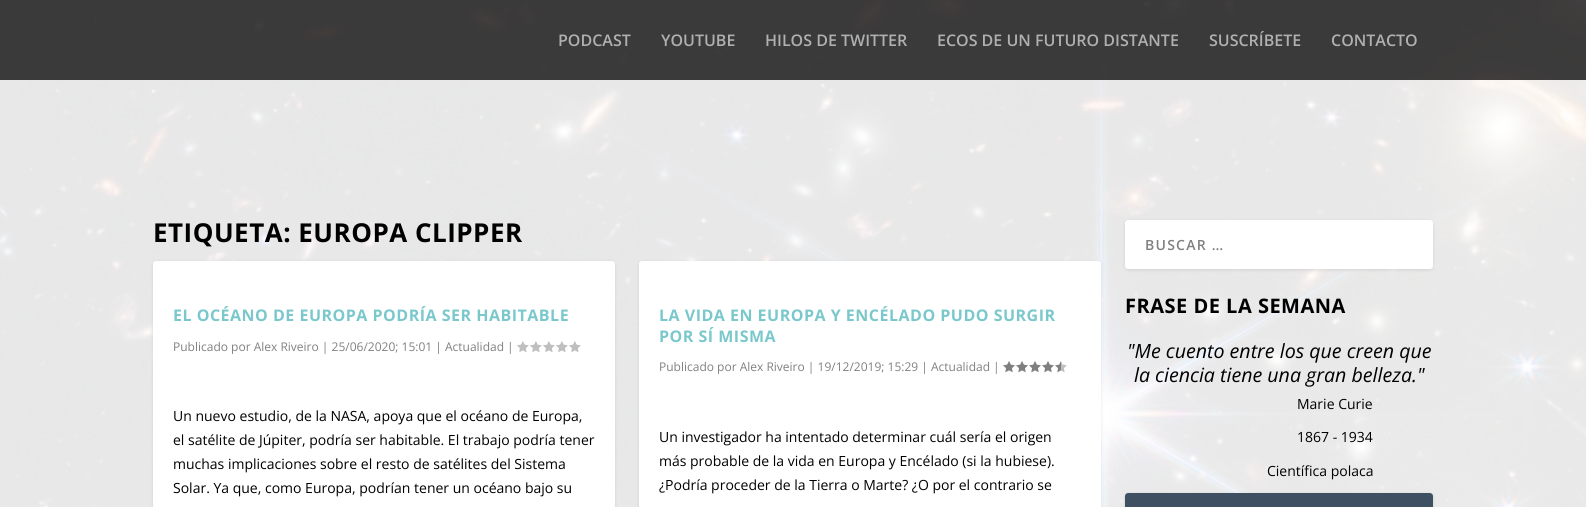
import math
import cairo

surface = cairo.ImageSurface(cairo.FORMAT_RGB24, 1586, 507)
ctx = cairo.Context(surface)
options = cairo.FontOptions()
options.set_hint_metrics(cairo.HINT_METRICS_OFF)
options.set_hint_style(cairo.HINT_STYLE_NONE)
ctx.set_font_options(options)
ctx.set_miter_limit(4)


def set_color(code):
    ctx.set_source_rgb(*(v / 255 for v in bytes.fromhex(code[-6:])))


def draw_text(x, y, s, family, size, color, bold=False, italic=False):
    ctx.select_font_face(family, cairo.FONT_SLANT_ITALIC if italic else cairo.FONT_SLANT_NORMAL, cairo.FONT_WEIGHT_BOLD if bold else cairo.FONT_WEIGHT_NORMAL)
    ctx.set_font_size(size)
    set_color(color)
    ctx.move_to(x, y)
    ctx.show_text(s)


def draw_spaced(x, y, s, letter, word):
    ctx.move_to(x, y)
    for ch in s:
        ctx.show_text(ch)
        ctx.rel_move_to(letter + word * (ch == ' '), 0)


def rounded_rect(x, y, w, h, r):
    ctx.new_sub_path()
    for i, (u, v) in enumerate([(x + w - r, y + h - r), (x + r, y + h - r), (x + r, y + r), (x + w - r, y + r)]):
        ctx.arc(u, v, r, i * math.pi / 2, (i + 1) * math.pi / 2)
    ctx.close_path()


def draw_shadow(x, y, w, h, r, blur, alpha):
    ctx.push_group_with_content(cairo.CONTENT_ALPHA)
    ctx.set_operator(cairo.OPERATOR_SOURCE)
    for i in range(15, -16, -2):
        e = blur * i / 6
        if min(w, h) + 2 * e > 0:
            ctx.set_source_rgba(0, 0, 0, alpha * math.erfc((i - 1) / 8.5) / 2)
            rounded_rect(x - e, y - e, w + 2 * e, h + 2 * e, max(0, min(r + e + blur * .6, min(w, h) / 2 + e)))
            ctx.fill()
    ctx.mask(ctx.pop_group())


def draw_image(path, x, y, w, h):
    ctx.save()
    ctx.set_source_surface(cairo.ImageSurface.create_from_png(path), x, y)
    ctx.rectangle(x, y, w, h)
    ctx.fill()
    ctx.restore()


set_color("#ffffff")
ctx.paint()
draw_image("assets/img1.png", 0, 0, 1586, 507)
ctx.set_source_rgba(0.008, 0, 0, 0.75)
ctx.rectangle(0, 0, 1586, 80)
ctx.fill()
draw_text(558, 46, "PODCAST", "Open Sans SemiBold", 16, "#b1b0b0")
draw_text(661, 46, "YOUTUBE", "Open Sans SemiBold", 16, "#b1b0b0")
draw_text(765, 46, "HILOS DE TWITTER", "Open Sans SemiBold", 16, "#b1b0b0")
draw_text(937, 46, "ECOS DE UN FUTURO DISTANTE", "Open Sans SemiBold", 16, "#b1b0b0")
draw_text(1209, 46, "SUSCRÍBETE", "Open Sans SemiBold", 16, "#b1b0b0")
draw_text(1331, 46, "CONTACTO", "Open Sans SemiBold", 16, "#b1b0b0")
ctx.select_font_face("Open Sans", cairo.FONT_SLANT_NORMAL, cairo.FONT_WEIGHT_BOLD)
ctx.set_font_size(26)
set_color("#000000")
draw_spaced(153, 242, "ETIQUETA: EUROPA CLIPPER", 0.5, 0)
set_color("#000000")
draw_shadow(153, 262, 462, 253, 3, 1.5, 0.1)
set_color("#ffffff")
rounded_rect(153, 261, 462, 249, 3)
ctx.fill()
ctx.set_font_size(16)
set_color("#7ac8cc")
draw_spaced(173, 321, "EL OCÉANO DE EUROPA PODRÍA SER HABITABLE", 0.5, 0)
draw_text(173, 351, "Publicado por Alex Riveiro | 25/06/2020; 15:01 | Actualidad |", "Open Sans", 12, "#808080")
draw_image("assets/img2.png", 517, 341, 12, 12)
draw_image("assets/img2.png", 530, 341, 12, 12)
draw_image("assets/img2.png", 543, 341, 12, 12)
draw_image("assets/img2.png", 556, 341, 12, 12)
draw_image("assets/img2.png", 569, 341, 12, 12)
draw_text(173, 421, "Un nuevo estudio, de la NASA, apoya que el océano de Europa,", "Open Sans", 14, "#000000")
draw_text(173, 445, "el satélite de Júpiter, podría ser habitable. El trabajo podría tener", "Open Sans", 14, "#000000")
draw_text(173, 469, "muchas implicaciones sobre el resto de satélites del Sistema", "Open Sans", 14, "#000000")
draw_text(173, 493, "Solar. Ya que, como Europa, podrían tener un océano bajo su", "Open Sans", 14, "#000000")
set_color("#000000")
draw_shadow(639, 262, 462, 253, 3, 1.5, 0.1)
set_color("#ffffff")
rounded_rect(639, 261, 462, 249, 3)
ctx.fill()
ctx.select_font_face("Open Sans", cairo.FONT_SLANT_NORMAL, cairo.FONT_WEIGHT_BOLD)
ctx.set_font_size(16)
set_color("#7ac8cc")
draw_spaced(659, 321, "LA VIDA EN EUROPA Y ENCÉLADO PUDO SURGIR", 0.5, 0)
draw_spaced(659, 342, "POR SÍ MISMA", 0.5, 0)
draw_text(659, 371, "Publicado por Alex Riveiro | 19/12/2019; 15:29 | Actualidad |", "Open Sans", 12, "#808080")
draw_image("assets/img3.png", 1003, 361, 12, 12)
draw_image("assets/img3.png", 1016, 361, 12, 12)
draw_image("assets/img3.png", 1029, 361, 12, 12)
draw_image("assets/img3.png", 1042, 361, 12, 12)
draw_image("assets/img4.png", 1055, 361, 12, 12)
draw_text(659, 442, "Un investigador ha intentado determinar cuál sería el origen", "Open Sans", 14, "#000000")
draw_text(659, 466, "más probable de la vida en Europa y Encélado (si la hubiese).", "Open Sans", 14, "#000000")
draw_text(659, 490, "¿Podría proceder de la Tierra o Marte? ¿O por el contrario se", "Open Sans", 14, "#000000")
set_color("#000000")
draw_shadow(1125, 221, 308, 49, 3, 1.5, 0.1)
set_color("#ffffff")
rounded_rect(1125, 220, 308, 49, 3)
ctx.fill()
ctx.select_font_face("Open Sans SemiBold")
set_color("#808080")
draw_spaced(1145, 250, "BUSCAR …", 1.25, 0)
ctx.select_font_face("Open Sans", cairo.FONT_SLANT_NORMAL, cairo.FONT_WEIGHT_BOLD)
ctx.set_font_size(20)
set_color("#000000")
draw_spaced(1125, 313, "FRASE DE LA SEMANA", 0.5, 0)
draw_text(1127, 358, "\"Me cuento entre los que creen que", "Open Sans", 19.6, "#000000", italic=True)
draw_text(1134, 382, "la ciencia tiene una gran belleza.\"", "Open Sans", 19.6, "#000000", italic=True)
draw_text(1297, 409, "Marie Curie", "Open Sans", 14, "#000000")
draw_text(1297, 442, "1867 - 1934", "Open Sans", 14, "#000000")
draw_text(1267, 476, "Científica polaca", "Open Sans", 14, "#000000")
set_color("#000000")
draw_shadow(1125, 494, 308, 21, 3, 1.5, 0.1)
set_color("#3e5062")
ctx.new_path()
ctx.move_to(1128, 493)
ctx.line_to(1430, 493)
ctx.curve_to(1431.5, 493, 1433, 494.5, 1433, 496)
ctx.line_to(1433, 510)
ctx.line_to(1125, 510)
ctx.line_to(1125, 496)
ctx.curve_to(1125, 494.5, 1126.5, 493, 1128, 493)
ctx.close_path()
ctx.fill()
surface.write_to_png("output.png")
